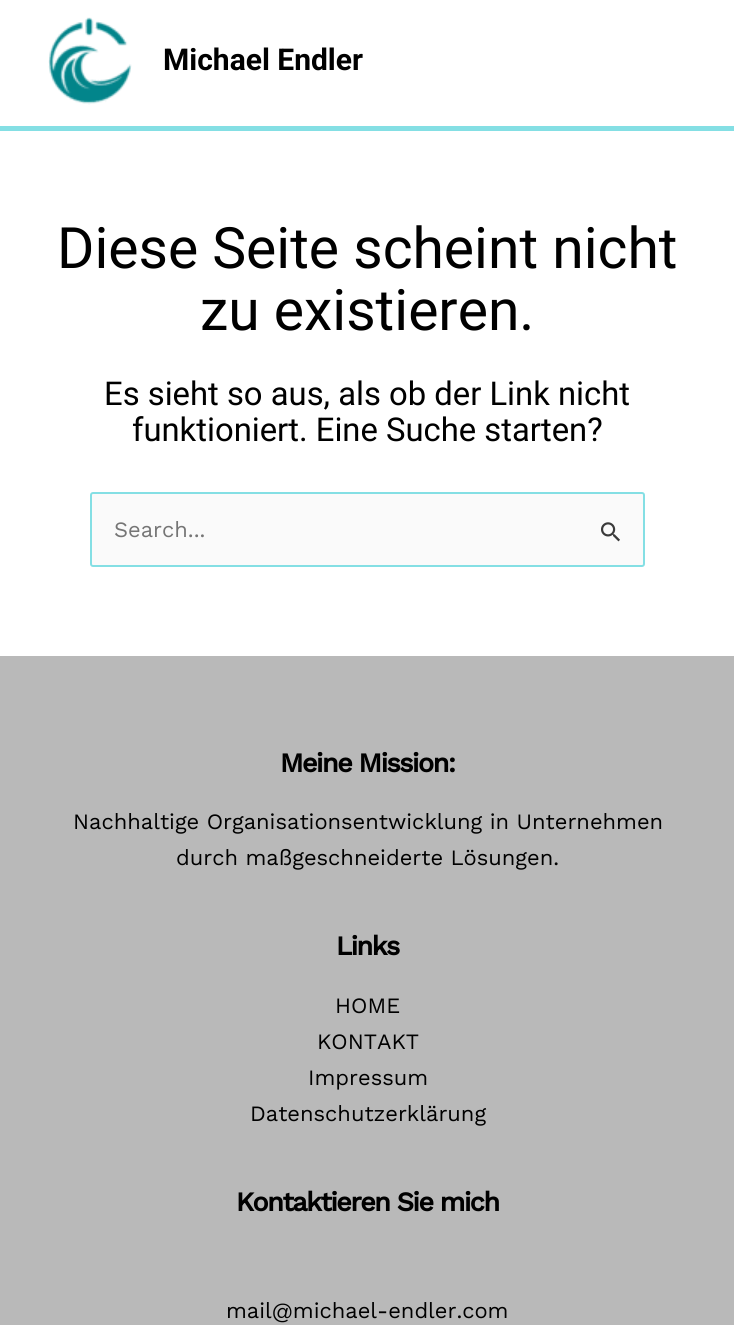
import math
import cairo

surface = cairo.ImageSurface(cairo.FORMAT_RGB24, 734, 1325)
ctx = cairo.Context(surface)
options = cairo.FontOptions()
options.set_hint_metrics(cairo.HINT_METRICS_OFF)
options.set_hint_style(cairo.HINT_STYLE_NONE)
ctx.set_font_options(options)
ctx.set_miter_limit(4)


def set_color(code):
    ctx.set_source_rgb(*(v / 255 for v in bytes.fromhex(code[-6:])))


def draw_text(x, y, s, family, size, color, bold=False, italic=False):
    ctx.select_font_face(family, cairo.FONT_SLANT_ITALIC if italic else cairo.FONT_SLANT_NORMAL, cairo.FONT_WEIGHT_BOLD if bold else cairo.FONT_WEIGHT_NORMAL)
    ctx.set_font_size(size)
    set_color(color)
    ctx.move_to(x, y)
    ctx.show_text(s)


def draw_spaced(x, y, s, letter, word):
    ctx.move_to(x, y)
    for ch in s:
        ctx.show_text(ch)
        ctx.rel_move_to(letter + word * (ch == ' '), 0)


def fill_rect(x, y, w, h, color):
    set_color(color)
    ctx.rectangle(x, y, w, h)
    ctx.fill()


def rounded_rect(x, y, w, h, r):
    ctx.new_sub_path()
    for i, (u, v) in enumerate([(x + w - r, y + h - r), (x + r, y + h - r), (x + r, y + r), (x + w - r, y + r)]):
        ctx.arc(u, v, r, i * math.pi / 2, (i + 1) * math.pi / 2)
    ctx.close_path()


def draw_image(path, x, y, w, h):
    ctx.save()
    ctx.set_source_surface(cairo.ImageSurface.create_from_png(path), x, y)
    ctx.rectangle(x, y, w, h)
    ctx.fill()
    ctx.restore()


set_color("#ffffff")
ctx.paint()
fill_rect(0, 126, 734, 5, "#84dfe4")
draw_image("assets/img1.png", 48, 17, 84, 88)
draw_text(163, 70, "Michael Endler", "Roboto", 30, "#000000", bold=True)
draw_text(57, 268, "Diese Seite scheint nicht", "Roboto", 57, "#000000")
draw_text(200, 330, "zu existieren.", "Roboto", 57, "#000000")
draw_text(104, 405, "Es sieht so aus, als ob der Link nicht", "Roboto", 32.8, "#000000")
draw_text(132, 441, "funktioniert. Eine Suche starten?", "Roboto", 32.8, "#000000")
set_color("#fafafa")
rounded_rect(91, 493, 553, 73, 2)
ctx.fill_preserve()
set_color("#84dfe4")
ctx.stroke()
draw_text(114, 537, "Search...", "Work Sans", 21.9, "#757575")
draw_image("assets/img2.png", 601, 522, 19, 20)
fill_rect(0, 656, 734, 669, "#b9b9b9")
ctx.select_font_face("Work Sans", cairo.FONT_SLANT_NORMAL, cairo.FONT_WEIGHT_BOLD)
ctx.set_font_size(27)
set_color("#000000")
draw_spaced(280, 772, "Meine Mission:", -1.5, 0)
draw_text(73, 829, "Nachhaltige Organisationsentwicklung in Unternehmen", "Work Sans", 21.9, "#000000")
draw_text(176, 865, "durch maßgeschneiderte Lösungen.", "Work Sans", 21.9, "#000000")
ctx.select_font_face("Work Sans", cairo.FONT_SLANT_NORMAL, cairo.FONT_WEIGHT_BOLD)
ctx.set_font_size(27)
draw_spaced(336, 955, "Links", -1.5, 0)
draw_text(335, 1013, "HOME", "Work Sans", 21.9, "#000000")
draw_text(317, 1049, "KONTAKT", "Work Sans", 21.9, "#000000")
draw_text(308, 1085, "Impressum", "Work Sans", 21.9, "#000000")
draw_text(250, 1121, "Datenschutzerklärung", "Work Sans", 21.9, "#000000")
ctx.select_font_face("Work Sans", cairo.FONT_SLANT_NORMAL, cairo.FONT_WEIGHT_BOLD)
ctx.set_font_size(27)
draw_spaced(236, 1211, "Kontaktieren Sie mich", -1.5, 0)
draw_text(226, 1318, "mail@michael-endler.com", "Work Sans", 21.9, "#000000")
surface.write_to_png("output.png")
